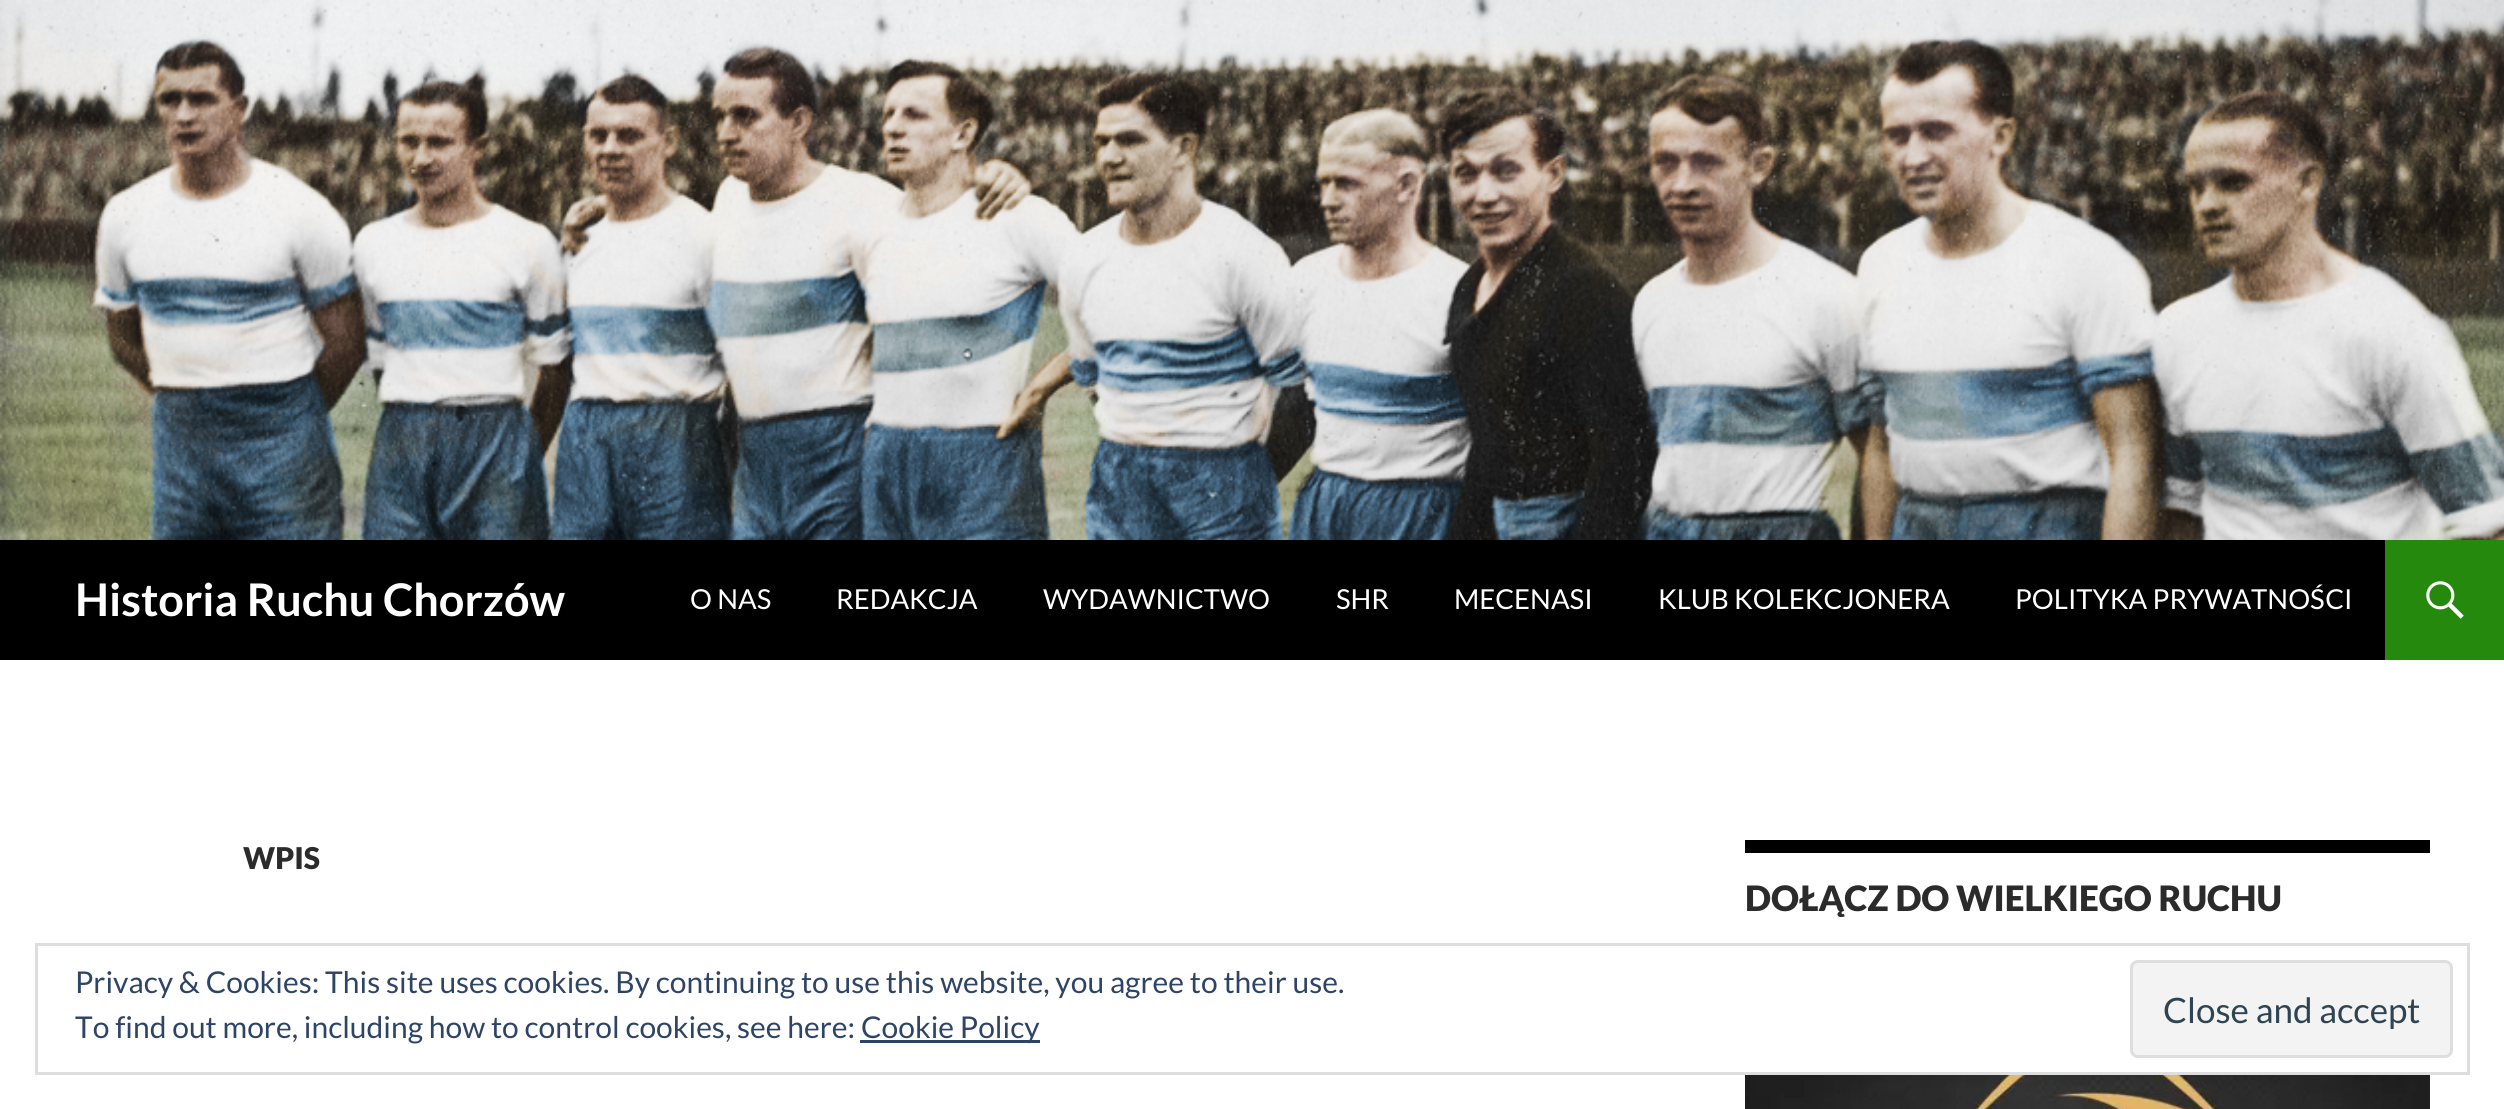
import math
import cairo

surface = cairo.ImageSurface(cairo.FORMAT_RGB24, 2504, 1109)
ctx = cairo.Context(surface)
options = cairo.FontOptions()
options.set_hint_metrics(cairo.HINT_METRICS_OFF)
options.set_hint_style(cairo.HINT_STYLE_NONE)
ctx.set_font_options(options)
ctx.set_miter_limit(4)


def set_color(code):
    ctx.set_source_rgb(*(v / 255 for v in bytes.fromhex(code[-6:])))


def draw_text(x, y, s, family, size, color, bold=False, italic=False):
    ctx.select_font_face(family, cairo.FONT_SLANT_ITALIC if italic else cairo.FONT_SLANT_NORMAL, cairo.FONT_WEIGHT_BOLD if bold else cairo.FONT_WEIGHT_NORMAL)
    ctx.set_font_size(size)
    set_color(color)
    ctx.move_to(x, y)
    ctx.show_text(s)


def fill_rect(x, y, w, h, color):
    set_color(color)
    ctx.rectangle(x, y, w, h)
    ctx.fill()


def rounded_rect(x, y, w, h, r):
    ctx.new_sub_path()
    for i, (u, v) in enumerate([(x + w - r, y + h - r), (x + r, y + h - r), (x + r, y + r), (x + w - r, y + r)]):
        ctx.arc(u, v, r, i * math.pi / 2, (i + 1) * math.pi / 2)
    ctx.close_path()


def draw_image(path, x, y, w, h):
    ctx.save()
    ctx.set_source_surface(cairo.ImageSurface.create_from_png(path), x, y)
    ctx.rectangle(x, y, w, h)
    ctx.fill()
    ctx.restore()


set_color("#ffffff")
ctx.paint()
draw_image("assets/img1.png", 0, 0, 2504, 540)
fill_rect(0, 540, 2385, 120, "#000000")
draw_text(75, 616, "Historia Ruchu Chorzów", "Lato", 45, "#ffffff", bold=True)
draw_text(690, 609, "O NAS", "Lato", 27.5, "#ffffff")
draw_text(836, 609, "REDAKCJA", "Lato", 27.5, "#ffffff")
draw_text(1043, 609, "WYDAWNICTWO", "Lato", 27.5, "#ffffff")
draw_text(1336, 609, "SHR", "Lato", 27.5, "#ffffff")
draw_text(1454, 609, "MECENASI", "Lato", 27.5, "#ffffff")
draw_text(1658, 609, "KLUB KOLEKCJONERA", "Lato", 27.5, "#ffffff")
draw_text(2015, 609, "POLITYKA PRYWATNOŚCI", "Lato", 27.5, "#ffffff")
fill_rect(2385, 540, 119, 120, "#24890d")
draw_image("assets/img2.png", 2426, 581, 38, 38)
draw_text(243, 869, "WPIS", "Lato Black", 30, "#2b2b2b")
fill_rect(1745, 840, 685, 13, "#000000")
draw_text(1745, 911, "DOŁĄCZ DO WIELKIEGO RUCHU", "Lato Black", 35, "#2b2b2b")
draw_image("assets/img3.png", 1745, 1075, 685, 34)
ctx.rectangle(36.5, 944.5, 2432, 129)
set_color("#dedede")
ctx.set_line_width(3)
ctx.stroke()
draw_text(75, 993, "Privacy & Cookies: This site uses cookies. By continuing to use this website, you agree to their use.", "Lato", 30, "#2e4467")
draw_text(75, 1038, "To find out more, including how to control cookies, see here:", "Lato", 30, "#2e4467")
fill_rect(860, 1040, 180, 3, "#2e4467")
draw_text(861, 1038, "Cookie Policy", "Lato", 30, "#2e4467")
set_color("#f3f3f3")
rounded_rect(2131.5, 961.5, 320, 95, 6.5)
ctx.fill_preserve()
set_color("#dedede")
ctx.stroke()
draw_text(2163, 1023, "Close and accept", "Lato", 35, "#2e4453")
surface.write_to_png("output.png")
